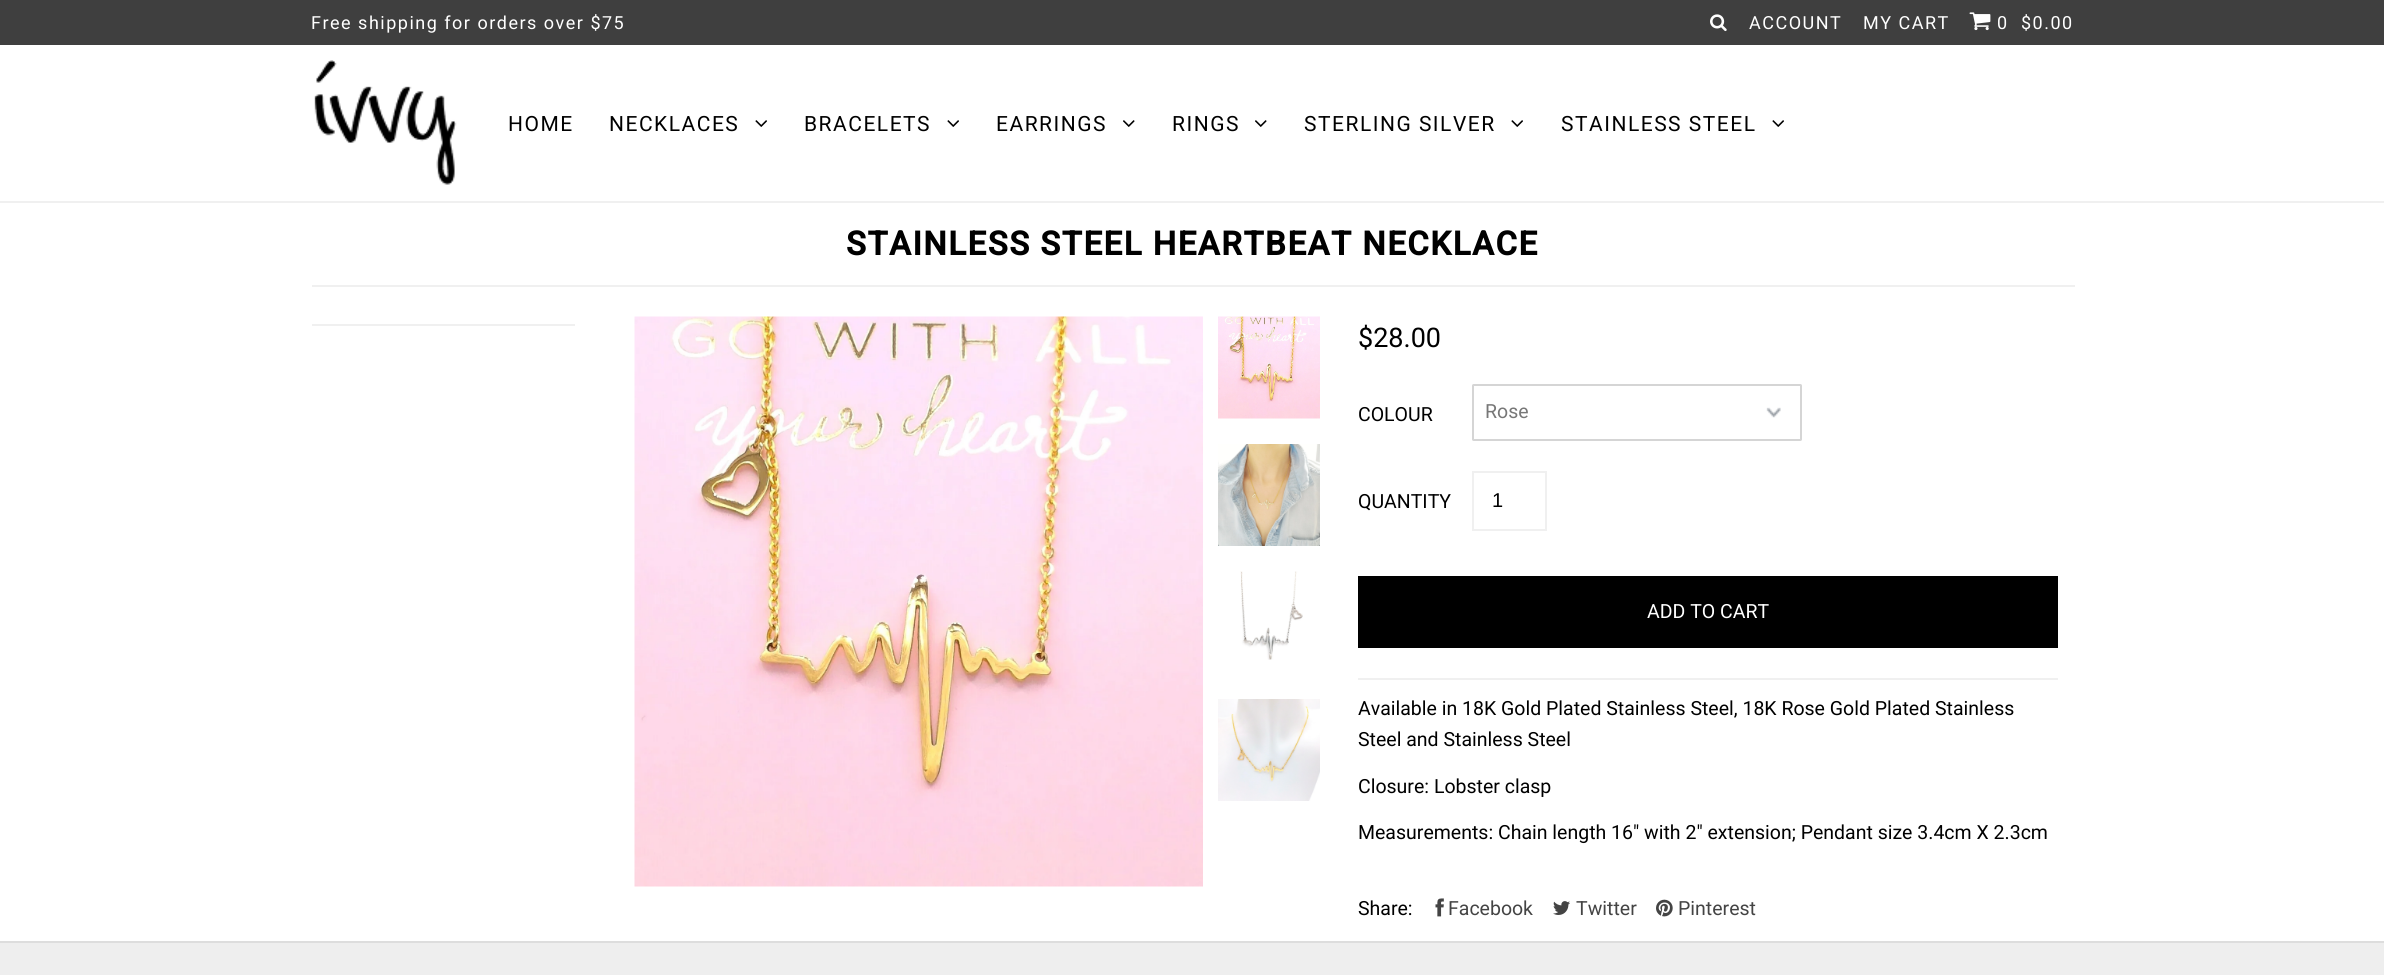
import math
import cairo

surface = cairo.ImageSurface(cairo.FORMAT_RGB24, 2384, 975)
ctx = cairo.Context(surface)
options = cairo.FontOptions()
options.set_hint_metrics(cairo.HINT_METRICS_OFF)
options.set_hint_style(cairo.HINT_STYLE_NONE)
ctx.set_font_options(options)
ctx.set_miter_limit(4)


def set_color(code):
    ctx.set_source_rgb(*(v / 255 for v in bytes.fromhex(code[-6:])))


def draw_text(x, y, s, family, size, color, bold=False, italic=False):
    ctx.select_font_face(family, cairo.FONT_SLANT_ITALIC if italic else cairo.FONT_SLANT_NORMAL, cairo.FONT_WEIGHT_BOLD if bold else cairo.FONT_WEIGHT_NORMAL)
    ctx.set_font_size(size)
    set_color(color)
    ctx.move_to(x, y)
    ctx.show_text(s)


def draw_spaced(x, y, s, letter, word):
    ctx.move_to(x, y)
    for ch in s:
        ctx.show_text(ch)
        ctx.rel_move_to(letter + word * (ch == ' '), 0)


def fill_rect(x, y, w, h, color):
    set_color(color)
    ctx.rectangle(x, y, w, h)
    ctx.fill()


def rounded_rect(x, y, w, h, r):
    ctx.new_sub_path()
    for i, (u, v) in enumerate([(x + w - r, y + h - r), (x + r, y + h - r), (x + r, y + r), (x + w - r, y + r)]):
        ctx.arc(u, v, r, i * math.pi / 2, (i + 1) * math.pi / 2)
    ctx.close_path()


def draw_image(path, x, y, w, h):
    ctx.save()
    ctx.set_source_surface(cairo.ImageSurface.create_from_png(path), x, y)
    ctx.rectangle(x, y, w, h)
    ctx.fill()
    ctx.restore()


set_color("#ffffff")
ctx.paint()
fill_rect(0, 201, 2384, 2, "#f0f0f0")
fill_rect(0, 0, 2384, 45, "#3f3f3f")
ctx.select_font_face("Roboto")
ctx.set_font_size(18)
set_color("#ffffff")
draw_spaced(311, 29, "Free shipping for orders over $75", 1.5, 0)
draw_image("assets/img1.png", 1710, 14, 17, 18)
draw_spaced(1749, 29, "ACCOUNT", 1.5, 0)
draw_spaced(1863, 29, "MY CART", 1.5, 0)
draw_image("assets/img2.png", 1969, 12, 22, 19)
draw_spaced(1997, 29, "0", 1.5, 0)
draw_spaced(2021, 29, "$0.00", 1.5, 0)
draw_image("assets/img3.png", 314, 60, 143, 125)
ctx.set_font_size(21)
set_color("#000000")
draw_spaced(508, 131, "HOME", 1.5, 0)
draw_spaced(609, 131, "NECKLACES", 1.5, 0)
draw_image("assets/img4.png", 755, 120, 12, 7)
draw_spaced(804, 131, "BRACELETS", 1.5, 0)
draw_image("assets/img4.png", 947, 120, 12, 7)
draw_spaced(996, 131, "EARRINGS", 1.5, 0)
draw_image("assets/img5.png", 1123, 120, 12, 7)
draw_spaced(1172, 131, "RINGS", 1.5, 0)
draw_image("assets/img5.png", 1255, 120, 12, 7)
draw_spaced(1304, 131, "STERLING SILVER", 1.5, 0)
draw_image("assets/img4.png", 1511, 120, 12, 7)
draw_spaced(1561, 131, "STAINLESS STEEL", 1.5, 0)
draw_image("assets/img4.png", 1772, 120, 12, 7)
fill_rect(312, 285, 1763, 2, "#f0f0f0")
ctx.select_font_face("Roboto", cairo.FONT_SLANT_NORMAL, cairo.FONT_WEIGHT_BOLD)
ctx.set_font_size(33)
set_color("#000000")
draw_spaced(846, 255, "STAINLESS STEEL HEARTBEAT NECKLACE", 1.5, 0)
fill_rect(312, 324, 263, 2, "#f0f0f0")
draw_image("assets/img6.png", 634, 316, 569, 571)
draw_image("assets/img7.png", 1218, 316, 102, 103)
draw_image("assets/img8.png", 1218, 444, 102, 102)
draw_image("assets/img9.png", 1240, 571, 63, 89)
draw_image("assets/img10.png", 1218, 699, 102, 102)
draw_text(1358, 347, "$28.00", "Roboto", 27, "#000000")
fill_rect(1358, 678, 700, 2, "#f0f0f0")
draw_text(1358, 421, "COLOUR", "Roboto", 19.5, "#000000")
draw_image("assets/img11.png", 1766, 407, 15, 11)
rounded_rect(1473, 385, 328, 55, 0.5)
set_color("#d5d5d5")
ctx.stroke()
draw_text(1485, 418, "Rose", "Roboto", 19.5, "#777777")
draw_text(1358, 508, "QUANTITY", "Roboto", 19.5, "#000000")
ctx.rectangle(1473, 472, 73, 58)
set_color("#f0f0f0")
ctx.stroke()
draw_text(1492, 507, "1", "Liberation Sans", 20, "#000000")
fill_rect(1358, 576, 700, 72, "#000000")
draw_text(1647, 618, "ADD TO CART", "Roboto", 19.5, "#ffffff")
draw_text(1358, 715, "Available in 18K Gold Plated Stainless Steel, 18K Rose Gold Plated Stainless", "Roboto", 19.5, "#000000")
draw_text(1358, 746, "Steel and Stainless Steel", "Roboto", 19.5, "#000000")
draw_text(1358, 793, "Closure: Lobster clasp", "Roboto", 19.5, "#000000")
draw_text(1358, 839, "Measurements: Chain length 16\" with 2\" extension; Pendant size 3.4cm X 2.3cm", "Roboto", 19.5, "#000000")
draw_text(1358, 915, "Share:", "Roboto", 19.5, "#000000")
draw_image("assets/img12.png", 1435, 898, 9, 19)
draw_text(1448, 915, "Facebook", "Roboto", 19.5, "#444444")
draw_image("assets/img13.png", 1553, 901, 17, 14)
draw_text(1576, 915, "Twitter", "Roboto", 19.5, "#444444")
draw_image("assets/img14.png", 1656, 899, 17, 18)
draw_text(1678, 915, "Pinterest", "Roboto", 19.5, "#444444")
fill_rect(0, 943, 2384, 32, "#eeeeee")
fill_rect(0, 941, 2384, 2, "#dddddd")
surface.write_to_png("output.png")
